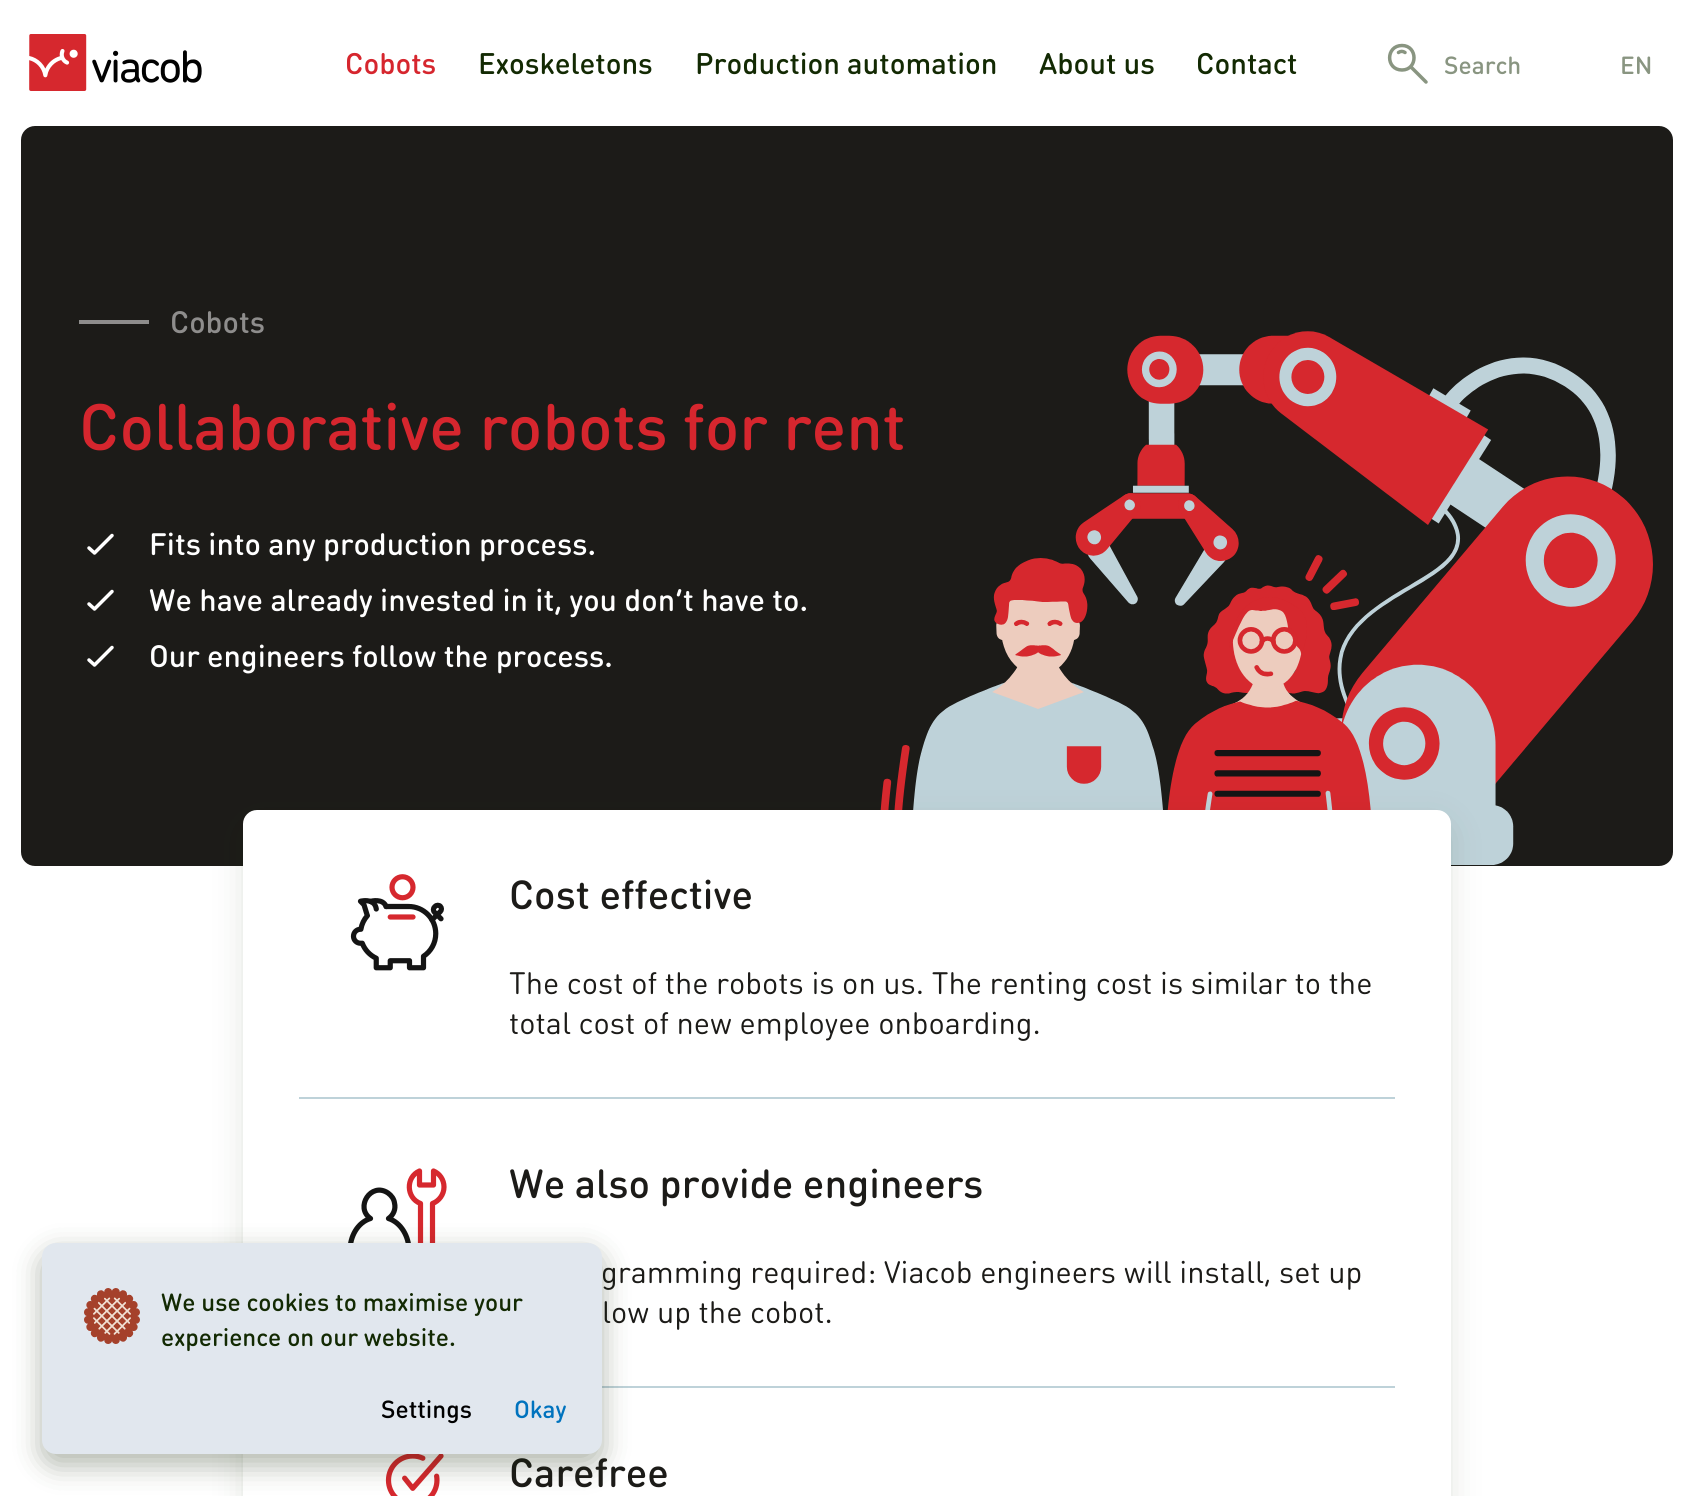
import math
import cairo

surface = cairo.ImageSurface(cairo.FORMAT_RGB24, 1693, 1496)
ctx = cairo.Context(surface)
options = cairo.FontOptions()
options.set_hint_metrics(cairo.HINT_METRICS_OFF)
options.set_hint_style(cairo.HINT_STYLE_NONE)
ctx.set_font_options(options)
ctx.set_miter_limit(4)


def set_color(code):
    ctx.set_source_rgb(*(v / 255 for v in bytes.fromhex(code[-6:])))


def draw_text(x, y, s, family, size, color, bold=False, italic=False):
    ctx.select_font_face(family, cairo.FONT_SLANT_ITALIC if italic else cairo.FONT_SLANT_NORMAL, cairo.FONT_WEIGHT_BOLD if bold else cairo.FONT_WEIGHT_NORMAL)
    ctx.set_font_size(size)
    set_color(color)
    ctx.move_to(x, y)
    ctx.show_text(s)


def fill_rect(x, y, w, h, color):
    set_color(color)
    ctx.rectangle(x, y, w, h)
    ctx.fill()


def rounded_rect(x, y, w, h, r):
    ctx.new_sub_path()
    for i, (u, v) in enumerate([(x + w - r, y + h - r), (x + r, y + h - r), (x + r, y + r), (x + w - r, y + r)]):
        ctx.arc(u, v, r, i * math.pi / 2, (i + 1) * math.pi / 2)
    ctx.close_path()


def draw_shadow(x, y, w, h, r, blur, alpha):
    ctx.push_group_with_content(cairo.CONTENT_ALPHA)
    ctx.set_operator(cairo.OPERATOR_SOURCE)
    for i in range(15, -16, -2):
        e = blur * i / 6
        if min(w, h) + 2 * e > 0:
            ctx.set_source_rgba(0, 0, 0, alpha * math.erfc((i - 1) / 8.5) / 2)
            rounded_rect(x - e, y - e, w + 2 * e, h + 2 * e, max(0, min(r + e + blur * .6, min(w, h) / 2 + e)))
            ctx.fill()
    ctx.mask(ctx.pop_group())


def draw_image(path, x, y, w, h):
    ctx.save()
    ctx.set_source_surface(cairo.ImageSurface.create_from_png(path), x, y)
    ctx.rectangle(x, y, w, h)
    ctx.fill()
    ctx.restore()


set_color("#ffffff")
ctx.paint()
draw_image("assets/img1.png", 29, 34, 173, 57)
draw_text(345, 74, "Cobots", "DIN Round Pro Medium", 29.4, "#d6262e")
draw_text(478, 74, "Exoskeletons", "DIN Round Pro Medium", 29.4, "#132a03")
draw_text(695, 74, "Production automation", "DIN Round Pro Medium", 29.4, "#132a03")
draw_text(1039, 74, "About us", "DIN Round Pro Medium", 29.4, "#132a03")
draw_text(1196, 74, "Contact", "DIN Round Pro Medium", 29.4, "#132a03")
ctx.new_path()
ctx.move_to(1398.5, 52.5)
ctx.curve_to(1400.5, 51, 1403, 51, 1405, 52.5)
ctx.move_to(1402, 45.5)
ctx.curve_to(1418, 45.5, 1418, 70, 1402, 70)
ctx.curve_to(1385.5, 70, 1385.5, 45.5, 1402, 45.5)
ctx.move_to(1411, 67)
ctx.line_to(1426, 82)
set_color("#899581")
ctx.set_line_width(3.5)
ctx.set_line_cap(cairo.LINE_CAP_ROUND)
ctx.set_line_join(cairo.LINE_JOIN_ROUND)
ctx.stroke()
draw_text(1444, 74, "Search", "DIN Round Pro Medium", 24.5, "#899581")
draw_text(1620, 74, "EN", "DIN Round Pro Medium", 24.5, "#899581")
set_color("#1c1b18")
rounded_rect(21, 126, 1652, 740, 14)
ctx.fill()
fill_rect(79, 320, 70, 4, "#8e8d8c")
draw_text(170, 333, "Cobots", "DIN Round Pro Medium", 30.6, "#8e8d8c")
draw_image("assets/img2.png", 880, 331, 773, 534)
draw_text(79, 450, "Collaborative robots for rent", "DIN Round Pro Medium", 64.5, "#d6262e")
ctx.new_path()
ctx.move_to(89, 548)
ctx.line_to(94.5, 553)
ctx.line_to(112, 535.5)
set_color("#ffffff")
ctx.stroke()
draw_text(149, 555, "Fits into any production process.", "DIN Round Pro Medium", 30.6, "#ffffff")
ctx.new_path()
ctx.move_to(89, 604)
ctx.line_to(94.5, 609)
ctx.line_to(112, 591.5)
ctx.stroke()
draw_text(149, 611, "We have already invested in it, you don’t have to.", "DIN Round Pro Medium", 30.6, "#ffffff")
ctx.new_path()
ctx.move_to(89, 660)
ctx.line_to(94.5, 665)
ctx.line_to(112, 647.5)
ctx.stroke()
draw_text(149, 667, "Our engineers follow the process.", "DIN Round Pro Medium", 30.6, "#ffffff")
set_color("#132a03")
draw_shadow(250, 828, 1194, 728, 7, 17.5, 0.18)
set_color("#ffffff")
rounded_rect(243, 810, 1208, 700, 14)
ctx.fill()
draw_image("assets/img3.png", 350, 874, 94, 97)
draw_text(509, 909, "Cost effective", "DIN Round Pro Medium", 40.1, "#1c1b18")
draw_text(509, 994, "The cost of the robots is on us. The renting cost is similar to the", "DIN Round Pro", 30.6, "#1c1b18")
draw_text(509, 1034, "total cost of new employee onboarding.", "DIN Round Pro", 30.6, "#1c1b18")
fill_rect(299, 1097, 1096, 2, "#bed2d9")
ctx.new_path()
ctx.move_to(350, 1250.5)
ctx.curve_to(350, 1236.5, 357.5, 1222.5, 370.5, 1218.5)
ctx.curve_to(354.5, 1207.5, 371, 1181.5, 388, 1193)
ctx.curve_to(391.5, 1195.5, 394, 1199, 394.5, 1203)
ctx.curve_to(396, 1209, 393.5, 1215, 388.5, 1218.5)
ctx.curve_to(401, 1222.5, 409, 1236.5, 409, 1250.5)
set_color("#141414")
ctx.set_line_width(5.2)
ctx.stroke()
ctx.new_path()
ctx.move_to(444, 1187)
ctx.curve_to(444, 1179.5, 439.5, 1173.5, 433.5, 1171)
ctx.line_to(433.5, 1185)
ctx.line_to(419.5, 1185)
ctx.line_to(419.5, 1171)
ctx.curve_to(405.5, 1177, 406, 1198, 420.5, 1203.5)
ctx.line_to(420.5, 1251)
ctx.line_to(432.5, 1251)
ctx.line_to(432.5, 1203.5)
ctx.curve_to(439, 1201, 444, 1194.5, 444, 1187)
ctx.close_path()
set_color("#d6282e")
ctx.stroke()
draw_text(509, 1198, "We also provide engineers", "DIN Round Pro Medium", 40.1, "#1c1b18")
draw_text(601, 1283, "gramming required: Viacob engineers will install, set up", "DIN Round Pro", 30.6, "#1c1b18")
draw_text(602, 1323, "low up the cobot.", "DIN Round Pro", 30.6, "#1c1b18")
fill_rect(602, 1386, 793, 2, "#bed2d9")
draw_image("assets/img4.png", 385, 1454, 59, 42)
draw_text(509, 1487, "Carefree", "DIN Round Pro Medium", 40.1, "#1c1b18")
set_color("#132505")
draw_shadow(42, 1253, 560, 212, 14, 14, 0.33)
set_color("#e1e7ee")
rounded_rect(42, 1243, 560, 211, 14)
ctx.fill()
draw_image("assets/img5.png", 84, 1288, 56, 56)
draw_text(161, 1311, "We use cookies to maximise your", "DIN Round Pro Medium", 24.5, "#132a03")
draw_text(161, 1346, "experience on our website.", "DIN Round Pro Medium", 24.5, "#132a03")
draw_text(381, 1418, "Settings", "DIN Round Pro Medium", 24.5, "#000000")
draw_text(514, 1418, "Okay", "DIN Round Pro Medium", 24.5, "#0073be")
surface.write_to_png("output.png")
